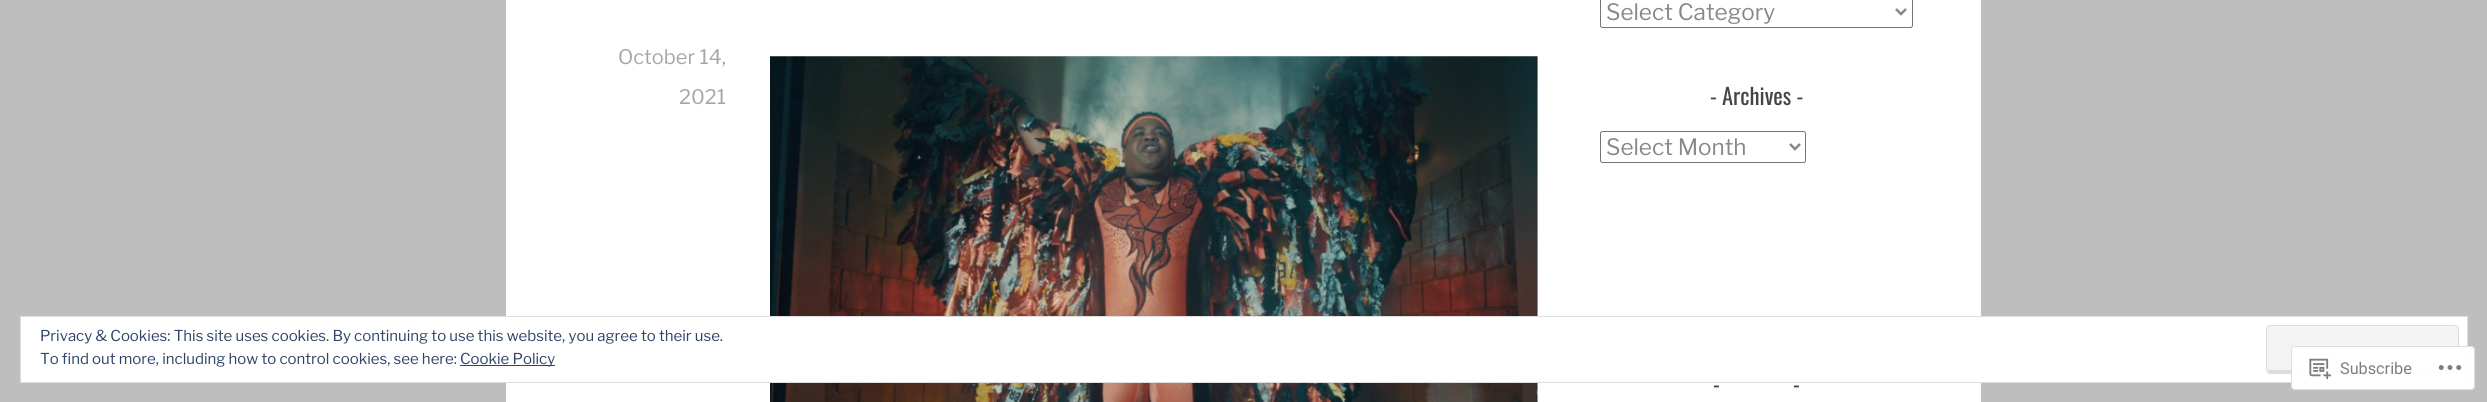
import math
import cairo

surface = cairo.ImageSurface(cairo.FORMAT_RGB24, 2487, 402)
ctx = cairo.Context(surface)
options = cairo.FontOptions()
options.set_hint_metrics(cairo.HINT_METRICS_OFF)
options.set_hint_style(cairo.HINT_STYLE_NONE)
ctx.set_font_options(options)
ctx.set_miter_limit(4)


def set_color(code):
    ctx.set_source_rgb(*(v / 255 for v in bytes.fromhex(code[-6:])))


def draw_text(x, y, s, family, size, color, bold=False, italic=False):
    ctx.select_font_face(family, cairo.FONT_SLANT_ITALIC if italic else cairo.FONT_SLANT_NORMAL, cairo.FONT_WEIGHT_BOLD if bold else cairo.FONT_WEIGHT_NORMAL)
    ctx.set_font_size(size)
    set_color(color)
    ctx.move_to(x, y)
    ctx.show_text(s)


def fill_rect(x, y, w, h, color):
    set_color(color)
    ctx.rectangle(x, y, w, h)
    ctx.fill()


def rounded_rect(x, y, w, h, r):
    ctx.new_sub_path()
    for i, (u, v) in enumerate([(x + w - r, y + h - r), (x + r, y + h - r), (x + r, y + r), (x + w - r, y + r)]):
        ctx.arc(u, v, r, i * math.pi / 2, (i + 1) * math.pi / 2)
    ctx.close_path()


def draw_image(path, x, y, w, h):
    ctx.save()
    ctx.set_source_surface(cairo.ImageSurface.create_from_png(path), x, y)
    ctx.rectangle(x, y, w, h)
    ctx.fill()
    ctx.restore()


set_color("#bfbebe")
ctx.paint()
fill_rect(506, 0, 1475, 402, "#ffffff")
draw_image("assets/img1.png", 770, 56, 768, 346)
ctx.rectangle(20.5, 316.5, 2447, 66)
ctx.fill_preserve()
set_color("#dedede")
ctx.set_line_width(1)
ctx.stroke()
draw_text(40, 341, "Privacy & Cookies: This site uses cookies. By continuing to use this website, you agree to their use.", "Libre Franklin", 15, "#2e4467")
set_color("#f3f3f3")
rounded_rect(2266, 325, 193, 49, 4)
ctx.fill()
set_color("#dbdbdb")
ctx.new_path()
ctx.move_to(2268, 368)
ctx.curve_to(2268, 370, 2268, 373, 2270, 373)
ctx.line_to(2456, 373)
ctx.curve_to(2458, 372, 2458, 370, 2458, 368)
ctx.curve_to(2458, 369, 2456, 370, 2455, 370)
ctx.line_to(2270, 370)
ctx.line_to(2268, 369)
ctx.close_path()
ctx.fill()
rounded_rect(2266.5, 325.5, 192, 48, 3.5)
set_color("#dedede")
ctx.stroke()
draw_text(40, 364, "To find out more, including how to control cookies, see here:", "Libre Franklin", 15, "#2e4467")
fill_rect(460, 365, 95, 1, "#2e4467")
draw_text(460, 364, "Cookie Policy", "Libre Franklin", 15, "#2e4467")
draw_text(618, 64, "October 14,", "Libre Franklin", 20, "#a8a6a1")
draw_text(679, 104, "2021", "Libre Franklin", 20, "#a8a6a1")
rounded_rect(1600.5, -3.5, 312, 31, 2)
set_color("#767676")
ctx.stroke()
ctx.new_path()
ctx.move_to(1896, 9)
ctx.line_to(1901, 14)
ctx.line_to(1906, 9)
set_color("#888888")
ctx.set_line_width(2.5)
ctx.stroke()
draw_text(1606, 20, "Select Category", "Libre Franklin", 22.5, "#888888")
draw_text(1710, 105, "- Archives -", "Oswald", 22.5, "#444444")
rounded_rect(1600.5, 131.5, 205, 31, 2)
set_color("#767676")
ctx.set_line_width(1)
ctx.stroke()
ctx.new_path()
ctx.move_to(1790, 144)
ctx.line_to(1795, 149)
ctx.line_to(1800, 144)
set_color("#888888")
ctx.set_line_width(2.5)
ctx.stroke()
draw_text(1606, 155, "Select Month", "Libre Franklin", 22.5, "#888888")
draw_text(1713, 393, "-", "Oswald", 22.5, "#444444")
draw_text(1793, 393, "-", "Oswald", 22.5, "#444444")
ctx.set_source_rgba(1, 1, 1, 0.98)
rounded_rect(2291, 346, 184, 44, 4)
ctx.fill()
rounded_rect(2291.5, 346.5, 183, 43, 3.5)
ctx.set_source_rgba(0.863, 0.863, 0.871, 0.98)
ctx.set_line_width(1)
ctx.stroke()
draw_image("assets/img2.png", 2309, 358, 22, 22)
draw_text(2340, 374, "Subscribe", "Roboto", 16.25, "#7b7f84")
draw_image("assets/img3.png", 2438, 365, 24, 5)
surface.write_to_png("output.png")
